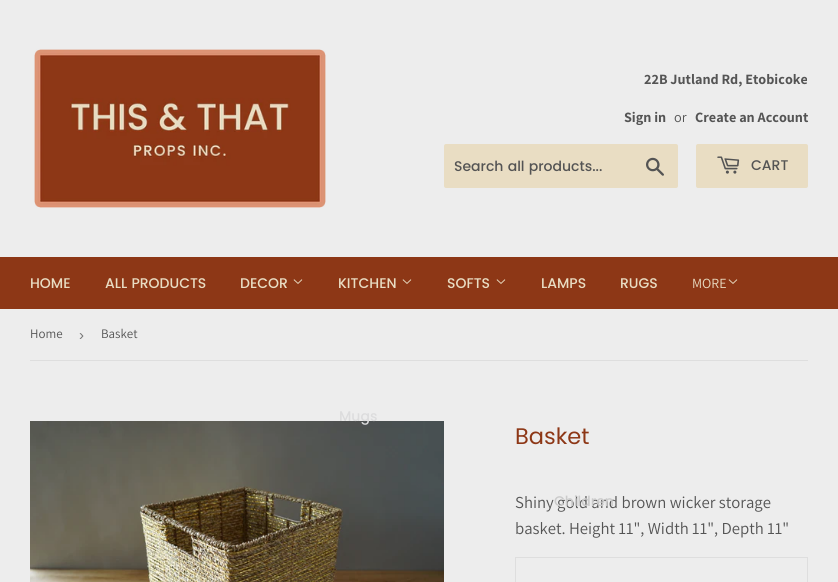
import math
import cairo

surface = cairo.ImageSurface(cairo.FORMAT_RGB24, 838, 582)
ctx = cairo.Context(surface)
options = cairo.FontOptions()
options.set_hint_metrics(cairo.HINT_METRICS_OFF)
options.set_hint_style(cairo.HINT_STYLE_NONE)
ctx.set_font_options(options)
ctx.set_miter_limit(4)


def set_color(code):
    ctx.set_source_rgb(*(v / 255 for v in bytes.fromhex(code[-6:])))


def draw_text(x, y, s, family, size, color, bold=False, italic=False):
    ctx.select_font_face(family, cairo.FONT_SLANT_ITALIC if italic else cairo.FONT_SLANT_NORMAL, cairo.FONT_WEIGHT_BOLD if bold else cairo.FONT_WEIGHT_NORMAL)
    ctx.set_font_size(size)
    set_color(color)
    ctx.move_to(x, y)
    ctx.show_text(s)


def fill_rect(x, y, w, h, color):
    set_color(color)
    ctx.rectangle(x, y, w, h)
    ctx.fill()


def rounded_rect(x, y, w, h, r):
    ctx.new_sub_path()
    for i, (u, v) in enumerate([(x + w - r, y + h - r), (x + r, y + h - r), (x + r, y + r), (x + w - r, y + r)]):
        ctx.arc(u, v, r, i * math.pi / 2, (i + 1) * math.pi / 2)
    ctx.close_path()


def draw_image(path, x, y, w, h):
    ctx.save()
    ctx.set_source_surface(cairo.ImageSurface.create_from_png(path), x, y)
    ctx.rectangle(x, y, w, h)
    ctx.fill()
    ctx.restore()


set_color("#ededed")
ctx.paint()
draw_image("assets/img1.png", 34, 49, 292, 159)
draw_text(644, 84, "22B Jutland Rd, Etobicoke", "Assistant", 14.25, "#545454", bold=True)
draw_text(624, 122, "Sign in", "Assistant", 14.25, "#545454", bold=True)
draw_text(674, 122, "or", "Assistant", 14.25, "#545454")
draw_text(695, 122, "Create an Account", "Assistant", 14.25, "#545454", bold=True)
set_color("#e9ddc3")
rounded_rect(444, 144, 234, 44, 2)
ctx.fill()
draw_text(454, 171, "Search all products...", "Poppins Medium", 14, "#545454")
draw_image("assets/img2.png", 646, 157, 18, 19)
set_color("#e9ddc3")
rounded_rect(696, 144, 112, 44, 2)
ctx.fill()
draw_image("assets/img3.png", 717, 156, 23, 18)
draw_text(751, 170, "CART", "Poppins Medium", 14, "#545454")
fill_rect(0, 257, 838, 52, "#8d3716")
draw_text(30, 288, "HOME", "Poppins Medium", 14, "#e9ddc3")
draw_text(105, 288, "ALL PRODUCTS", "Poppins Medium", 14, "#e9ddc3")
draw_text(240, 288, "DECOR", "Poppins Medium", 14, "#e9ddc3")
draw_image("assets/img4.png", 293, 279, 10, 5)
draw_text(338, 288, "KITCHEN", "Poppins Medium", 14, "#e9ddc3")
draw_image("assets/img4.png", 402, 279, 10, 5)
draw_image("assets/img5.png", 30, 421, 414, 161)
draw_text(339, 421, "Mugs", "Poppins Medium", 14, "#dcdcdd")
draw_text(447, 288, "SOFTS", "Poppins Medium", 14, "#e9ddc3")
draw_image("assets/img4.png", 496, 279, 10, 5)
draw_text(541, 288, "LAMPS", "Poppins Medium", 14, "#e9ddc3")
draw_text(692, 288, "MORE", "Assistant", 14, "#e9ddc3")
draw_image("assets/img4.png", 728, 279, 10, 5)
draw_text(515, 508, "Shiny gold and brown wicker storage", "Assistant", 16.75, "#545454")
draw_text(554, 506, "Children", "Poppins Medium", 14, "#cbcbcb")
draw_text(620, 288, "RUGS", "Poppins Medium", 14, "#e9ddc3")
fill_rect(30, 360, 778, 1, "#dedede")
draw_text(30, 338, "Home", "Assistant", 13, "#545454")
draw_text(79, 340, "›", "Liberation Sans", 15, "#767676")
draw_text(101, 338, "Basket", "Assistant", 13, "#545454")
draw_text(515, 444, "Basket", "Poppins", 22.5, "#8d3716")
draw_text(515, 534, "basket. Height 11\", Width 11\", Depth 11\"", "Assistant", 16.75, "#545454")
ctx.rectangle(515.5, 557.5, 292, 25)
set_color("#dedede")
ctx.set_line_width(1)
ctx.stroke()
surface.write_to_png("output.png")
